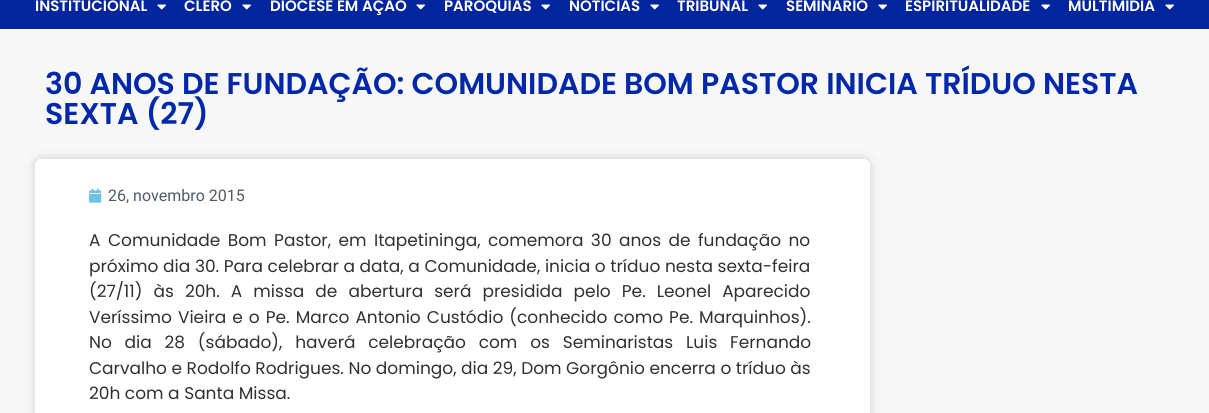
import math
import cairo

surface = cairo.ImageSurface(cairo.FORMAT_RGB24, 1209, 413)
ctx = cairo.Context(surface)
options = cairo.FontOptions()
options.set_hint_metrics(cairo.HINT_METRICS_OFF)
options.set_hint_style(cairo.HINT_STYLE_NONE)
ctx.set_font_options(options)
ctx.set_miter_limit(4)


def set_color(code):
    ctx.set_source_rgb(*(v / 255 for v in bytes.fromhex(code[-6:])))


def draw_text(x, y, s, family, size, color, bold=False, italic=False):
    ctx.select_font_face(family, cairo.FONT_SLANT_ITALIC if italic else cairo.FONT_SLANT_NORMAL, cairo.FONT_WEIGHT_BOLD if bold else cairo.FONT_WEIGHT_NORMAL)
    ctx.set_font_size(size)
    set_color(color)
    ctx.move_to(x, y)
    ctx.show_text(s)


def draw_spaced(x, y, s, letter, word):
    ctx.move_to(x, y)
    for ch in s:
        ctx.show_text(ch)
        ctx.rel_move_to(letter + word * (ch == ' '), 0)


def fill_rect(x, y, w, h, color):
    set_color(color)
    ctx.rectangle(x, y, w, h)
    ctx.fill()


def rounded_rect(x, y, w, h, r):
    ctx.new_sub_path()
    for i, (u, v) in enumerate([(x + w - r, y + h - r), (x + r, y + h - r), (x + r, y + r), (x + w - r, y + r)]):
        ctx.arc(u, v, r, i * math.pi / 2, (i + 1) * math.pi / 2)
    ctx.close_path()


def draw_shadow(x, y, w, h, r, blur, alpha):
    ctx.push_group_with_content(cairo.CONTENT_ALPHA)
    ctx.set_operator(cairo.OPERATOR_SOURCE)
    for i in range(15, -16, -2):
        e = blur * i / 6
        if min(w, h) + 2 * e > 0:
            ctx.set_source_rgba(0, 0, 0, alpha * math.erfc((i - 1) / 8.5) / 2)
            rounded_rect(x - e, y - e, w + 2 * e, h + 2 * e, max(0, min(r + e + blur * .6, min(w, h) / 2 + e)))
            ctx.fill()
    ctx.mask(ctx.pop_group())


def draw_image(path, x, y, w, h):
    ctx.save()
    ctx.set_source_surface(cairo.ImageSurface.create_from_png(path), x, y)
    ctx.rectangle(x, y, w, h)
    ctx.fill()
    ctx.restore()


set_color("#f7f7f7")
ctx.paint()
fill_rect(0, 0, 1209, 29, "#01259c")
draw_text(35, 11, "INSTITUCIONAL", "Poppins SemiBold", 15, "#ffffff")
draw_image("assets/img1.png", 157, 4, 9, 6)
draw_text(184, 11, "CLERO", "Poppins SemiBold", 15, "#ffffff")
draw_image("assets/img1.png", 242, 4, 9, 6)
draw_text(270, 11, "DIOCESE EM AÇÃO", "Poppins SemiBold", 15, "#ffffff")
draw_image("assets/img1.png", 416, 4, 9, 6)
draw_text(444, 11, "PARÓQUIAS", "Poppins SemiBold", 15, "#ffffff")
draw_image("assets/img1.png", 541, 4, 9, 6)
draw_text(569, 11, "NOTÍCIAS", "Poppins SemiBold", 15, "#ffffff")
draw_image("assets/img1.png", 650, 4, 9, 6)
draw_text(677, 11, "TRIBUNAL", "Poppins SemiBold", 15, "#ffffff")
draw_image("assets/img1.png", 758, 4, 9, 6)
draw_text(786, 11, "SEMINÁRIO", "Poppins SemiBold", 15, "#ffffff")
draw_image("assets/img1.png", 878, 4, 9, 6)
draw_text(905, 11, "ESPIRITUALIDADE", "Poppins SemiBold", 15, "#ffffff")
draw_image("assets/img1.png", 1041, 4, 9, 6)
draw_text(1068, 11, "MULTIMÍDIA", "Poppins SemiBold", 15, "#ffffff")
draw_image("assets/img1.png", 1165, 4, 9, 6)
draw_text(45, 94, "30 ANOS DE FUNDAÇÃO: COMUNIDADE BOM PASTOR INICIA TRÍDUO NESTA", "Poppins SemiBold", 30, "#0128a9")
draw_text(45, 124, "SEXTA (27)", "Poppins SemiBold", 30, "#0128a9")
set_color("#000000")
draw_shadow(35, 159, 835, 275, 6, 5, 0.17)
set_color("#ffffff")
rounded_rect(35, 159, 835, 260, 6)
ctx.fill()
draw_image("assets/img2.png", 89, 188, 13, 15)
draw_text(108, 201, "26, novembro 2015", "Roboto", 16, "#54595f")
ctx.select_font_face("Poppins")
ctx.set_font_size(17)
set_color("#303030")
draw_spaced(89, 246, "A Comunidade Bom Pastor, em Itapetininga, comemora 30 anos de fundação no", 0, 2.9)
draw_spaced(89, 272, "próximo dia 30. Para celebrar a data, a Comunidade, inicia o tríduo nesta sexta-feira", 0, 0.1)
draw_spaced(89, 297, "(27/11) às 20h. A missa de abertura será presidida pelo Pe. Leonel Aparecido", 0, 6.5)
draw_spaced(89, 323, "Veríssimo Vieira e o Pe. Marco Antonio Custódio (conhecido como Pe. Marquinhos).", 0, 1.5)
draw_spaced(89, 348, "No dia 28 (sábado), haverá celebração com os Seminaristas Luis Fernando", 0, 8.25)
draw_text(89, 374, "Carvalho e Rodolfo Rodrigues. No domingo, dia 29, Dom Gorgônio encerra o tríduo às", "Poppins", 17, "#303030")
draw_text(89, 399, "20h com a Santa Missa.", "Poppins", 17, "#303030")
surface.write_to_png("output.png")
